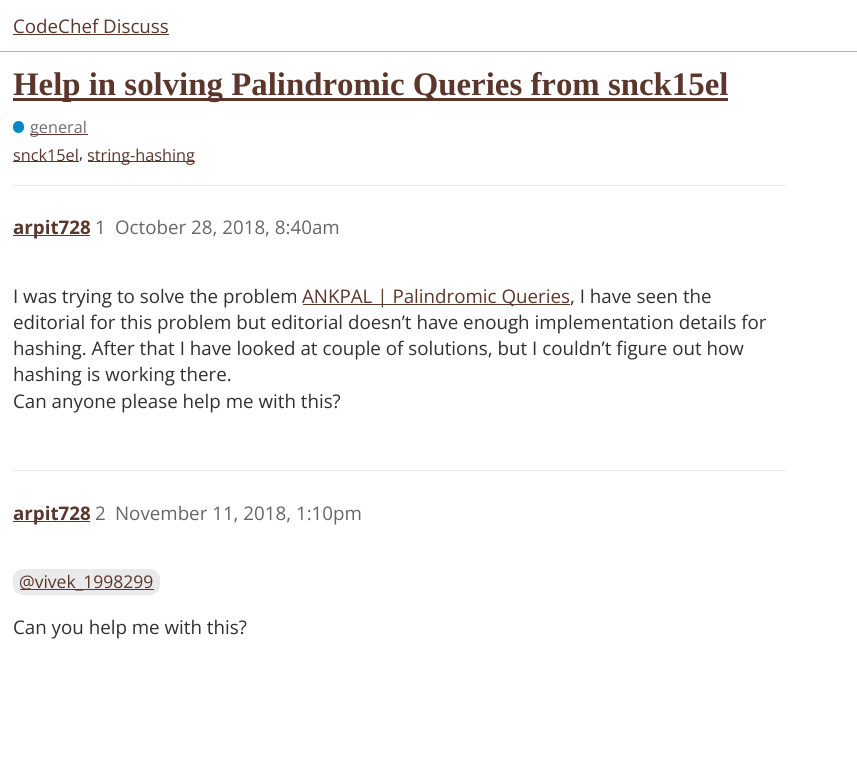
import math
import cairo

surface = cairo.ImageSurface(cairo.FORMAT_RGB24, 857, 782)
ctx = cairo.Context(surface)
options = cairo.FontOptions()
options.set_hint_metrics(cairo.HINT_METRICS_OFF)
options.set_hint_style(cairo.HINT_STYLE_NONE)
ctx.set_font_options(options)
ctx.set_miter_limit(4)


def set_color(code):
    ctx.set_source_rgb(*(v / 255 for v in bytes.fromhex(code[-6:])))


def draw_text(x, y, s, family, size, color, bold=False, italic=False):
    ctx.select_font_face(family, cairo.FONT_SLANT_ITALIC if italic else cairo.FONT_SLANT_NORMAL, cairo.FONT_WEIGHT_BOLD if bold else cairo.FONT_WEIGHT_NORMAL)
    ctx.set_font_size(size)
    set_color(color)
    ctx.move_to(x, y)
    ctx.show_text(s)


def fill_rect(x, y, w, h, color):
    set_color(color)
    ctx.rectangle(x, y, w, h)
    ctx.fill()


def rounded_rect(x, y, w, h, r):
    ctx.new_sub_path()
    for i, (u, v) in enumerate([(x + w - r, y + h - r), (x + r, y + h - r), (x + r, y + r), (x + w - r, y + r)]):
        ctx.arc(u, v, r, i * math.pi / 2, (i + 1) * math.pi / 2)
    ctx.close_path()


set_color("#ffffff")
ctx.paint()
fill_rect(0, 51, 857, 1, "#b4b4b4")
draw_text(13, 33, "CodeChef Discuss", "Open Sans", 18.75, "#5b362c")
fill_rect(13, 34, 156, 1, "#5b362c")
fill_rect(13, 98, 715, 3, "#5b362c")
draw_text(13, 95, "Help in solving Palindromic Queries from snck15el", "Liberation Serif", 32.85, "#5b362c", bold=True)
set_color("#0088cc")
rounded_rect(13, 121, 11, 12, 5.5)
ctx.fill()
fill_rect(30, 134, 58, 1, "#5b362c")
draw_text(30, 133, "general", "Open Sans", 16.25, "#6e6e6e")
fill_rect(13, 161, 66, 1, "#5b362c")
draw_text(13, 161, "snck15el", "Open Sans", 16.25, "#5b362c")
draw_text(79, 159, ",", "Open Sans", 16.25, "#303030")
fill_rect(88, 161, 107, 1, "#5b362c")
ctx.save()
ctx.rectangle(88, 143, 107, 23)
ctx.clip()
draw_text(87, 161, "string-hashing", "Open Sans", 16.25, "#5b362c")
ctx.restore()
fill_rect(13, 185, 773, 1, "#eaeaea")
fill_rect(13, 235, 77, 1, "#5b362c")
draw_text(13, 234, "arpit728", "Open Sans", 18.75, "#5b362c", bold=True)
draw_text(95, 234, "1", "Open Sans", 18.75, "#666666")
draw_text(115, 234, "October 28, 2018, 8:40am", "Open Sans", 18.75, "#666666")
draw_text(13, 303, "I was trying to solve the problem", "Open Sans", 18.75, "#303030")
fill_rect(303, 304, 267, 1, "#5b362c")
draw_text(302, 303, "ANKPAL | Palindromic Queries", "Open Sans", 18.75, "#5b362c")
draw_text(570, 303, ", I have seen the", "Open Sans", 18.75, "#303030")
draw_text(13, 329, "editorial for this problem but editorial doesn’t have enough implementation details for", "Open Sans", 18.75, "#303030")
draw_text(13, 355, "hashing. After that I have looked at couple of solutions, but I couldn’t figure out how", "Open Sans", 18.75, "#303030")
draw_text(13, 381, "hashing is working there.", "Open Sans", 18.75, "#303030")
draw_text(13, 408, "Can anyone please help me with this?", "Open Sans", 18.75, "#303030")
fill_rect(13, 470, 773, 1, "#eaeaea")
fill_rect(13, 521, 77, 1, "#5b362c")
draw_text(13, 520, "arpit728", "Open Sans", 18.75, "#5b362c", bold=True)
draw_text(95, 520, "2", "Open Sans", 18.75, "#666666")
draw_text(115, 520, "November 11, 2018, 1:10pm", "Open Sans", 18.75, "#666666")
set_color("#eaeaea")
rounded_rect(13, 569, 147, 26, 10)
ctx.fill()
fill_rect(20, 589, 134, 1, "#5b362c")
draw_text(19, 588, "@vivek_1998299", "Open Sans", 17.5, "#5b362c")
draw_text(13, 634, "Can you help me with this?", "Open Sans", 18.75, "#303030")
surface.write_to_png("output.png")
